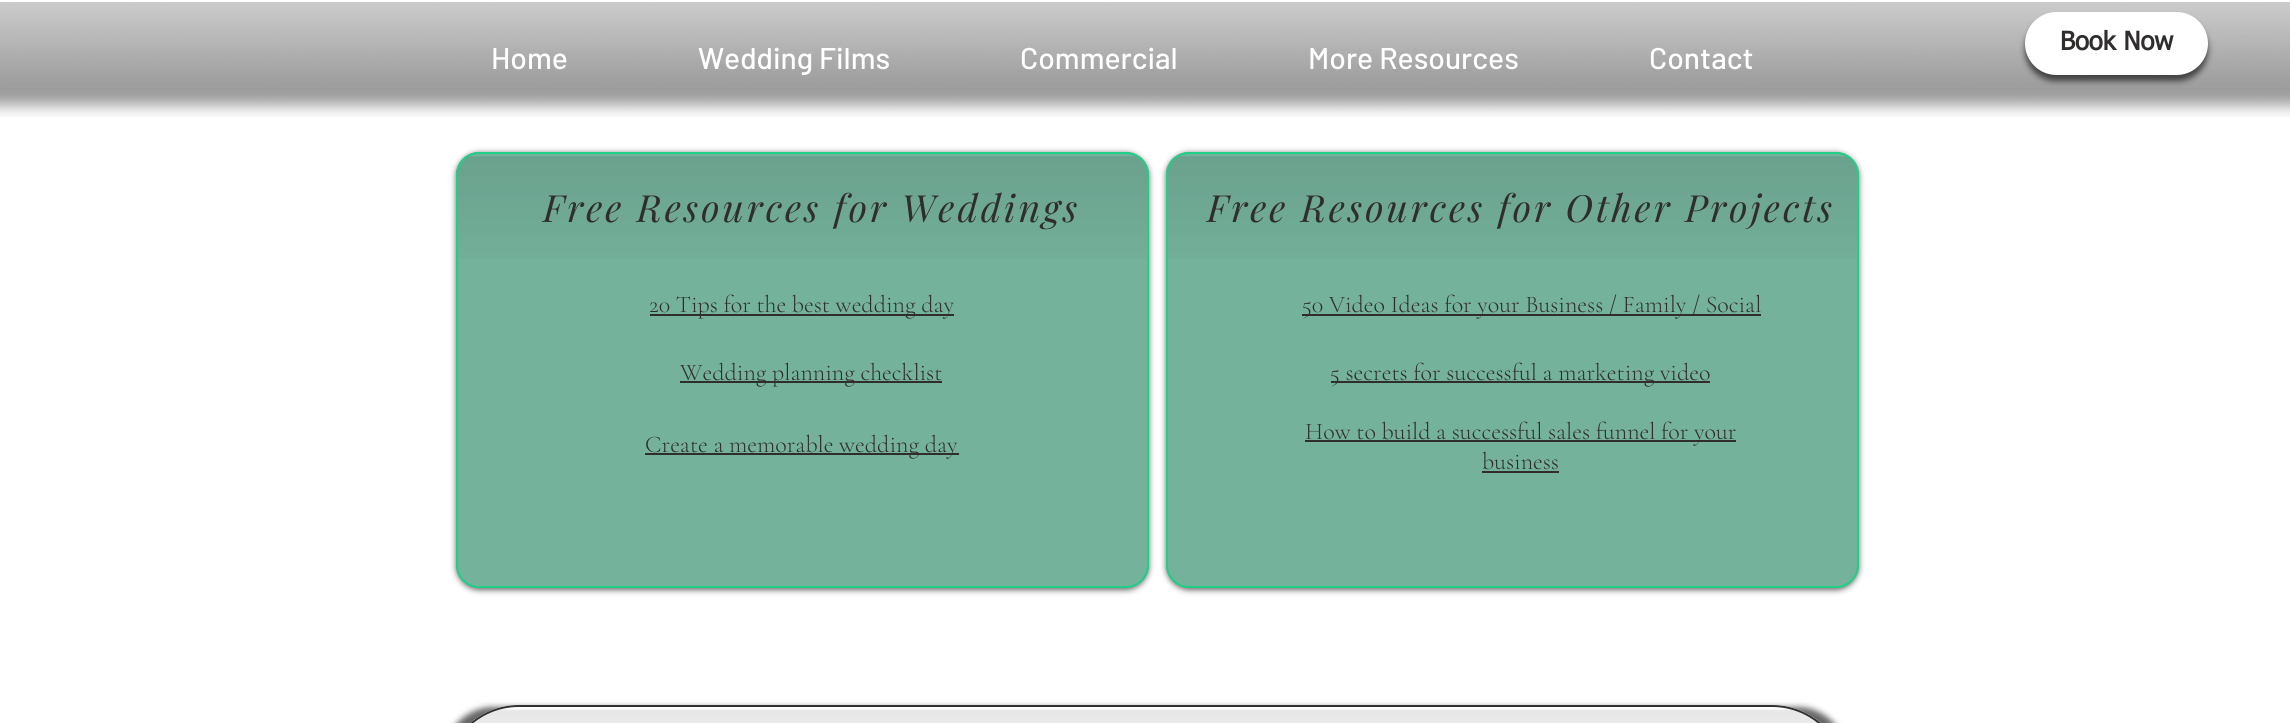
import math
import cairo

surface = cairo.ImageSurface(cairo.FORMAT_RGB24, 2290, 723)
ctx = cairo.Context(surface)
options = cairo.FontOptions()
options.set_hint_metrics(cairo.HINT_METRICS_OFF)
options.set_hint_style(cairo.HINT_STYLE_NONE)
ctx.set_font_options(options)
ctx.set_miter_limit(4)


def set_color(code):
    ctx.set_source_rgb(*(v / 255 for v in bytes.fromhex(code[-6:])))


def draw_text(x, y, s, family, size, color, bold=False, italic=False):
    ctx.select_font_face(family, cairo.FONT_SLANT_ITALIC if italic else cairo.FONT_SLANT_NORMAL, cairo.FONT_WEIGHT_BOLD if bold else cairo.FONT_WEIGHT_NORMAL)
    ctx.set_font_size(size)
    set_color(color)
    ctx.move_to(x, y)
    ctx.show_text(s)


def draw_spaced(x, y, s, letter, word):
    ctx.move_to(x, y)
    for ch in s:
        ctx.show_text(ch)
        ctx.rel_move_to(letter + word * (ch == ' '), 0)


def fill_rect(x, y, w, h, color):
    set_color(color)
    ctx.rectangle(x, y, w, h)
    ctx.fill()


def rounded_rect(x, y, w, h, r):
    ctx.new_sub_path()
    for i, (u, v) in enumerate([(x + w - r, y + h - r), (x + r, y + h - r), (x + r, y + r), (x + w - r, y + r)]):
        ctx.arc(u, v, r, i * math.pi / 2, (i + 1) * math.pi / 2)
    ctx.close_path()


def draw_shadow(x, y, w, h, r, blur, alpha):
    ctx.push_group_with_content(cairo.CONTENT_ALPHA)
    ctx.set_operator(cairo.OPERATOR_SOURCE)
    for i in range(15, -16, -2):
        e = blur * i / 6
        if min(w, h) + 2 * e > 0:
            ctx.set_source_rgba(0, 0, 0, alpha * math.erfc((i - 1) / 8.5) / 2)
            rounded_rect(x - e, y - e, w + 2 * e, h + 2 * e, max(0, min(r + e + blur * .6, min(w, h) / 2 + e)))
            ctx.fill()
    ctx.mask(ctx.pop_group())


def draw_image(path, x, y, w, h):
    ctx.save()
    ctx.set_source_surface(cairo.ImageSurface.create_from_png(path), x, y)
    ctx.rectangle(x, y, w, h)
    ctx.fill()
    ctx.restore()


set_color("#ffffff")
ctx.paint()
draw_image("assets/img1.png", 0, 2, 2290, 115)
set_color("#000000")
draw_shadow(2025, 18, 183, 63, 31.5, 3, 0.6)
set_color("#ffffff")
rounded_rect(2025, 12, 183, 63, 31.5)
ctx.fill()
draw_text(2060, 50, "Book Now", "tahoma", 25.5, "#302d2d", bold=True)
draw_text(491, 69, "Home", "Barlow Medium", 30, "#ffffff")
draw_text(698, 69, "Wedding Films", "Barlow Medium", 30, "#ffffff")
draw_text(1020, 69, "Commercial", "Barlow Medium", 30, "#ffffff")
draw_text(1308, 69, "More Resources", "Barlow Medium", 30, "#ffffff")
draw_text(1649, 69, "Contact", "Barlow Medium", 30, "#ffffff")
set_color("#000000")
draw_shadow(456, 153, 693, 437, 23, 3, 0.6)
set_color("#75b29c")
rounded_rect(456, 152, 693, 436, 23)
ctx.fill()
draw_image("assets/img2.png", 456, 156, 693, 103)
rounded_rect(457, 153, 691, 434, 22)
set_color("#20ce88")
ctx.stroke()
ctx.select_font_face("Playfair Display", cairo.FONT_SLANT_ITALIC)
ctx.set_font_size(37.5)
set_color("#302d2d")
draw_spaced(543, 222, "Free Resources for Weddings", 3, 0)
fill_rect(650, 314, 304, 2, "#302d2d")
draw_text(649, 312, "20 Tips for the best wedding day", "Cormorant Garamond Light", 24, "#302d2d")
fill_rect(680, 381, 262, 2, "#302d2d")
draw_text(680, 380, "Wedding planning checklist", "Cormorant Garamond Light", 24, "#302d2d")
fill_rect(645, 453, 314, 2, "#302d2d")
draw_text(645, 452, "Create a memorable wedding day", "Cormorant Garamond Light", 24, "#302d2d")
set_color("#000000")
draw_shadow(1166, 153, 693, 437, 23, 3, 0.6)
set_color("#75b29c")
rounded_rect(1166, 152, 693, 436, 23)
ctx.fill()
draw_image("assets/img3.png", 1166, 156, 692, 103)
rounded_rect(1167, 153, 691, 434, 22)
set_color("#20ce88")
ctx.stroke()
ctx.select_font_face("Playfair Display", cairo.FONT_SLANT_ITALIC)
ctx.set_font_size(37.5)
set_color("#302d2d")
draw_spaced(1207, 222, "Free Resources for Other Projects", 3, 0)
fill_rect(1302, 314, 459, 2, "#302d2d")
draw_text(1302, 312, "50 Video Ideas for your Business / Family / Social", "Cormorant Garamond Light", 24, "#302d2d")
fill_rect(1331, 381, 379, 2, "#302d2d")
draw_text(1330, 380, "5 secrets for successful a marketing video", "Cormorant Garamond Light", 24, "#302d2d")
fill_rect(1305, 440, 431, 2, "#302d2d")
draw_text(1305, 439, "How to build a successful sales funnel for your", "Cormorant Garamond Light", 24, "#302d2d")
draw_text(1482, 469, "business", "Cormorant Garamond Light", 24, "#302d2d")
fill_rect(1482, 471, 77, 2, "#302d2d")
ctx.save()
ctx.set_fill_rule(cairo.FILL_RULE_EVEN_ODD)
ctx.new_path()
ctx.move_to(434, 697)
ctx.line_to(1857, 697)
ctx.line_to(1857, 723)
ctx.line_to(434, 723)
ctx.close_path()
ctx.move_to(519, 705)
ctx.line_to(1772, 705)
ctx.curve_to(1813.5, 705, 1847, 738.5, 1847, 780)
ctx.line_to(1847, 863)
ctx.curve_to(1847, 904.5, 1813.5, 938, 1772, 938)
ctx.line_to(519, 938)
ctx.curve_to(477.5, 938, 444, 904.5, 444, 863)
ctx.line_to(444, 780)
ctx.curve_to(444, 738.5, 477.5, 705, 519, 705)
ctx.close_path()
ctx.clip()
set_color("#000000")
draw_shadow(444, 707, 1403, 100, 75, 3, 0.6)
ctx.restore()
ctx.set_source_rgba(1, 1, 1, 0.42)
rounded_rect(444, 705, 1403, 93, 75)
ctx.fill()
draw_image("assets/img4.png", 471, 709, 1349, 14)
rounded_rect(445, 706, 1401, 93, 74)
set_color("#323232")
ctx.stroke()
surface.write_to_png("output.png")
